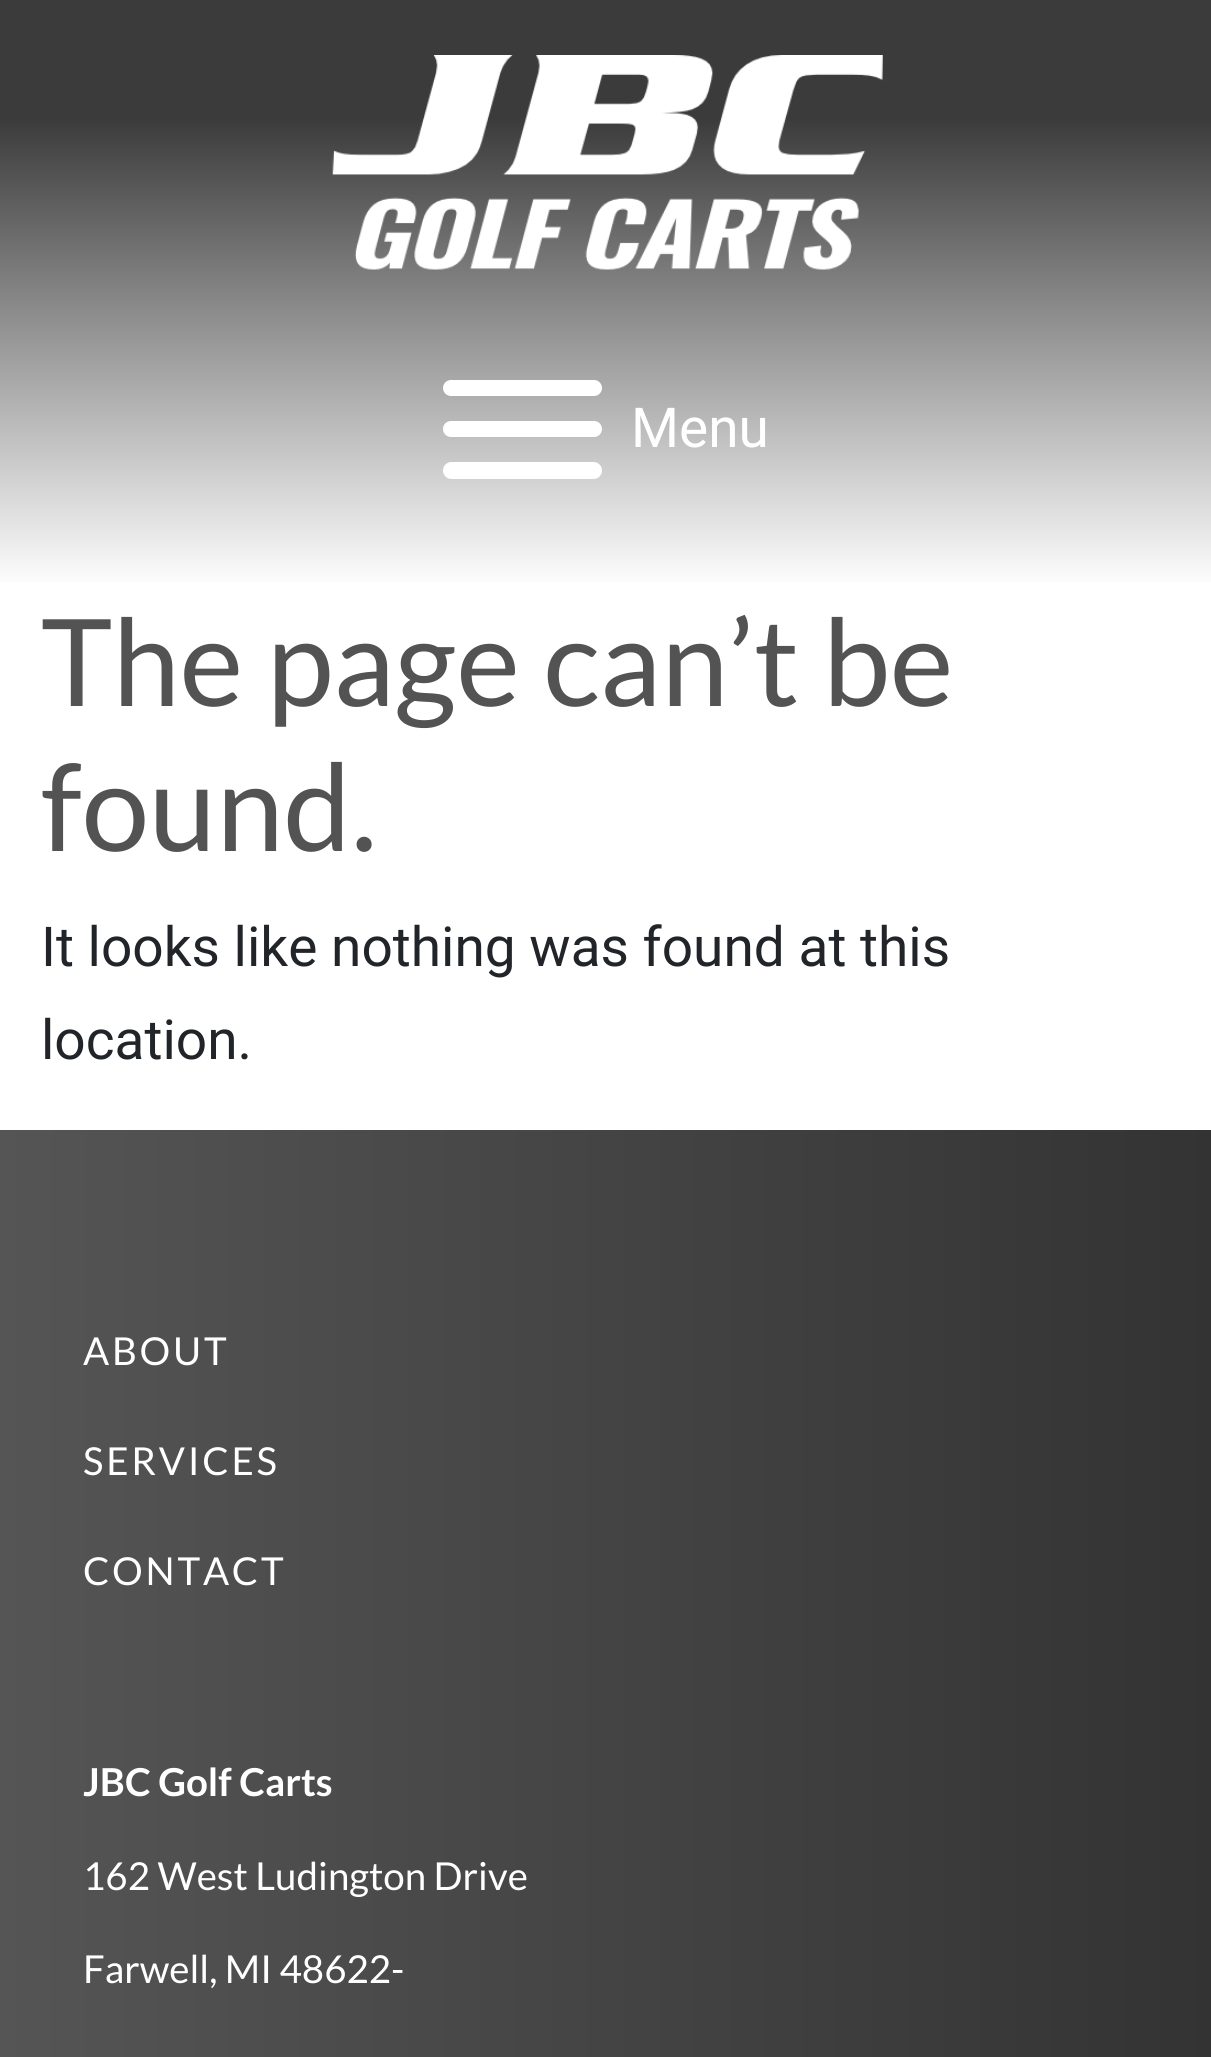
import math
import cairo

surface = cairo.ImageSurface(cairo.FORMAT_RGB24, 1211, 2057)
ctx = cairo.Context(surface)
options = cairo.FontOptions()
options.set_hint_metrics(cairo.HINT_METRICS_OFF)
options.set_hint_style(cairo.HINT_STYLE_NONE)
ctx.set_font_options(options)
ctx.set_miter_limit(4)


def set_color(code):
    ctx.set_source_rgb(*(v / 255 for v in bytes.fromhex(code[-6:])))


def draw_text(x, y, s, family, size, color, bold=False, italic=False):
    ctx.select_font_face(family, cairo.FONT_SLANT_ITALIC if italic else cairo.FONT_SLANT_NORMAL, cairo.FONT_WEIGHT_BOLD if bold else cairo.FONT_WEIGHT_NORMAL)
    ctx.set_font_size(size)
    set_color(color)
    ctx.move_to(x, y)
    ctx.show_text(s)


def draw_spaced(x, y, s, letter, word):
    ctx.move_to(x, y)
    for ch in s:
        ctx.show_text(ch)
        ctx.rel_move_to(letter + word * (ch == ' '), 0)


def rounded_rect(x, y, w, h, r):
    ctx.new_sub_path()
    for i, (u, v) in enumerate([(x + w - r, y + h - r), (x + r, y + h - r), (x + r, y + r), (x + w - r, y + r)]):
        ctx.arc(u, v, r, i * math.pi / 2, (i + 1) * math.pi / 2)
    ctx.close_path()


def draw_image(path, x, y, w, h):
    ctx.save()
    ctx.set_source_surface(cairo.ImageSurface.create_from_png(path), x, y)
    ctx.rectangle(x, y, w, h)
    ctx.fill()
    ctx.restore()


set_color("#ffffff")
ctx.paint()
gradient = cairo.LinearGradient(606, 589, 606, 0)
gradient.add_color_stop_rgba(0, 1, 1, 1, 1)
gradient.add_color_stop_rgba(0.8, 0.231, 0.231, 0.231, 1)
ctx.set_source(gradient)
ctx.rectangle(0, 0, 1211, 583)
ctx.fill()
draw_image("assets/img1.png", 332, 55, 551, 215)
set_color("#ffffff")
rounded_rect(443, 421, 159, 16, 8)
ctx.fill()
rounded_rect(443, 380, 159, 16, 8)
ctx.fill()
rounded_rect(443, 462, 159, 17, 8.5)
ctx.fill()
draw_text(631, 447, "Menu", "Roboto", 55, "#ffffff")
draw_text(41, 706, "The page can’t be", "Lato", 121, "#535353")
draw_text(41, 851, "found.", "Lato", 121, "#535353")
draw_text(41, 966, "It looks like nothing was found at this", "Roboto", 55, "#212529")
draw_text(41, 1059, "location.", "Roboto", 55, "#212529")
gradient = cairo.LinearGradient(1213, 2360, 0, 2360)
gradient.add_color_stop_rgba(0, 0.2, 0.2, 0.2, 1)
gradient.add_color_stop_rgba(1, 0.333, 0.333, 0.333, 1)
ctx.set_source(gradient)
ctx.rectangle(0, 1130, 1211, 927)
ctx.fill()
ctx.select_font_face("Lato")
ctx.set_font_size(38.5)
set_color("#ffffff")
draw_spaced(83, 1365, "ABOUT", 2.75, 0)
draw_spaced(83, 1475, "SERVICES", 2.75, 0)
draw_spaced(83, 1585, "CONTACT", 2.75, 0)
draw_text(83, 1796, "JBC Golf Carts", "Lato", 38.5, "#ffffff", bold=True)
draw_text(83, 1890, "162 West Ludington Drive", "Lato", 38.5, "#ffffff")
draw_text(83, 1983, "Farwell, MI 48622-", "Lato", 38.5, "#ffffff")
surface.write_to_png("output.png")
